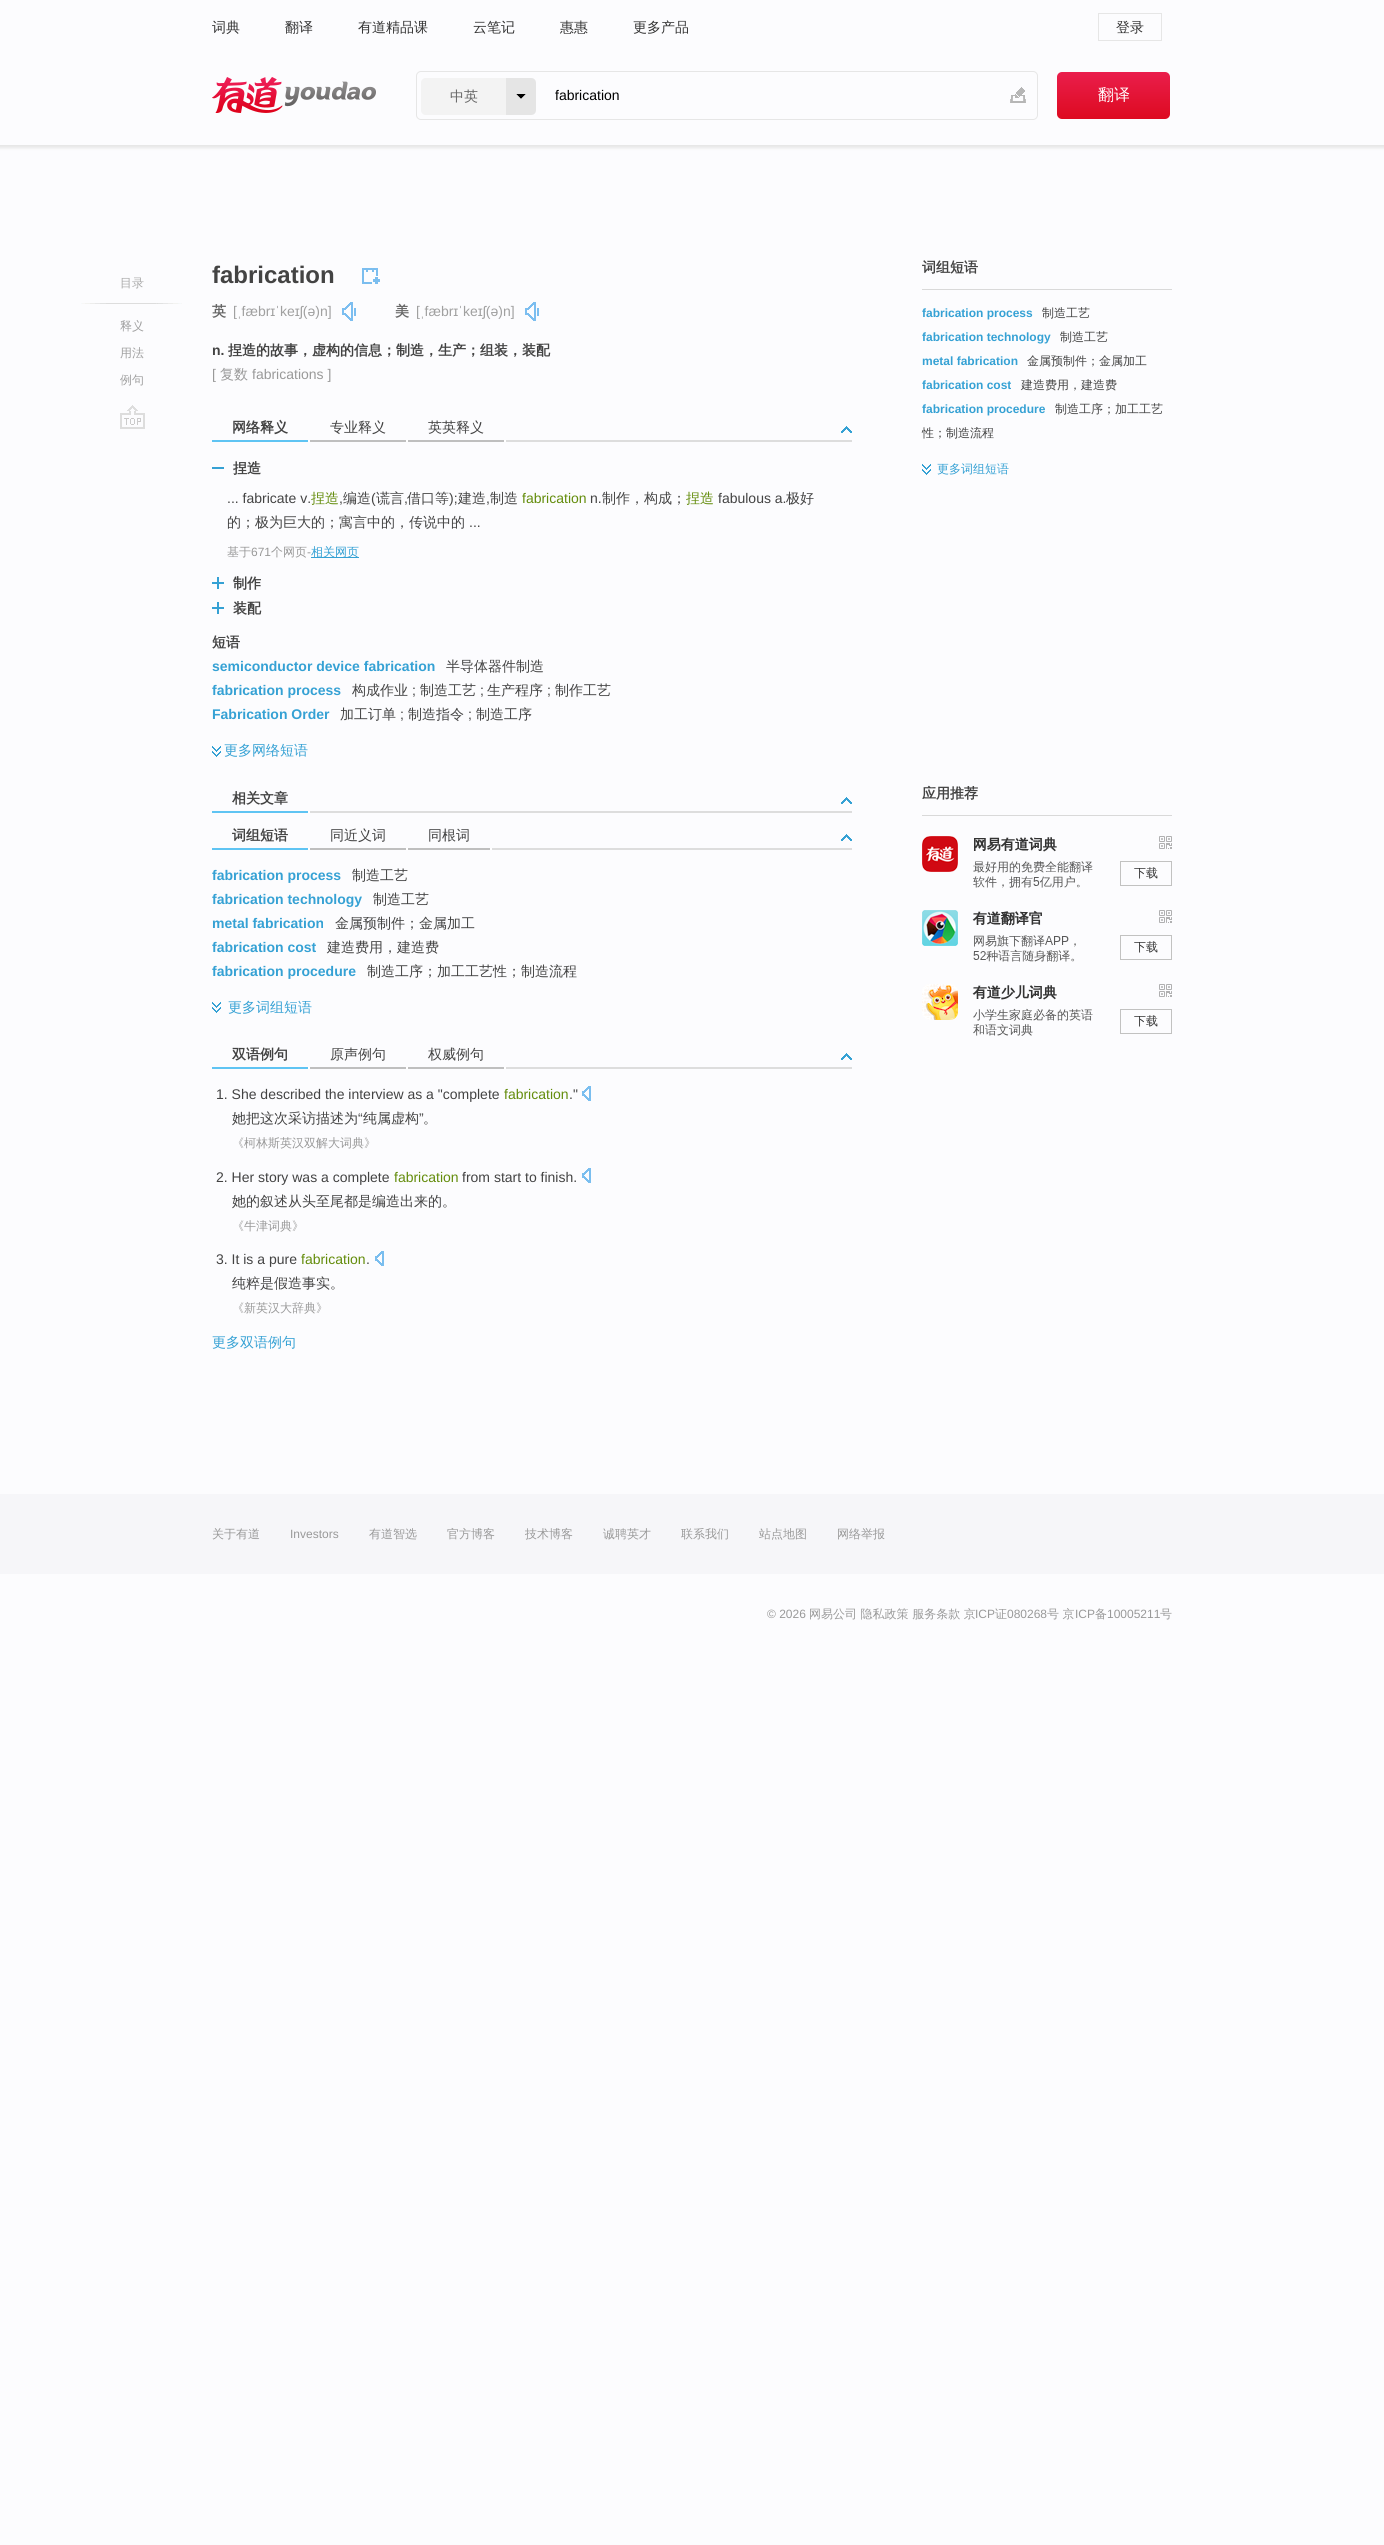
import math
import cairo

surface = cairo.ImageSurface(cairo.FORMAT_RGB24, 1384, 2545)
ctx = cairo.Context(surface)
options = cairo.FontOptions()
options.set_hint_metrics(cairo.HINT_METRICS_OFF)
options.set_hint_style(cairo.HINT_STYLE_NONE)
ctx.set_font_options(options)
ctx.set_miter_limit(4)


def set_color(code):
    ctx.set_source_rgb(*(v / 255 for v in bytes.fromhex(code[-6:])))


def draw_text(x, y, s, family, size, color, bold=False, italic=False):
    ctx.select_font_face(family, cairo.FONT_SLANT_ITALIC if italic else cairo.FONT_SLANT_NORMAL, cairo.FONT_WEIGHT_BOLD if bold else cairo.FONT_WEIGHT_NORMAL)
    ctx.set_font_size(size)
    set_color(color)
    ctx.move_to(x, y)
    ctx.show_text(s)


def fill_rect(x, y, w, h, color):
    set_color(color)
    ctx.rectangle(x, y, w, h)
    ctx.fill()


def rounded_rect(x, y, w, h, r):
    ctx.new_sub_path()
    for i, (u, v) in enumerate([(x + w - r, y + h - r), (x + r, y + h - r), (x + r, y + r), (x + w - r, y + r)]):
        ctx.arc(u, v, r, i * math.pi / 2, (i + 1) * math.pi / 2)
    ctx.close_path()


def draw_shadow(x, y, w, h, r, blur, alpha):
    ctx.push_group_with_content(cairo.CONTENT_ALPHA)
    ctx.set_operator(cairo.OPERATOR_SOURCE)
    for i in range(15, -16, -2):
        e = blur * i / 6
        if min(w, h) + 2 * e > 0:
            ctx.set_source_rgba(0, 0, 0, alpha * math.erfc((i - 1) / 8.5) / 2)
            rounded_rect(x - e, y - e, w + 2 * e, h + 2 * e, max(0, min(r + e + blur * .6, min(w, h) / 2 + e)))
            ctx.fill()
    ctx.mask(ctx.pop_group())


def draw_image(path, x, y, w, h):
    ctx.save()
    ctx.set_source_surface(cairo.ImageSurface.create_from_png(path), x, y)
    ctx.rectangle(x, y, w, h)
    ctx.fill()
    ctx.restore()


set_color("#fcfcfe")
ctx.paint()
ctx.save()
ctx.rectangle(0, 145, 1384, 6)
ctx.clip()
set_color("#e6e6e6")
draw_shadow(-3, -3, 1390, 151, 0, 1.5, 1)
ctx.restore()
draw_text(212, 32, "词典", "WenQuanYi Zen Hei Medium", 14, "#333333")
draw_text(285, 32, "翻译", "WenQuanYi Zen Hei Medium", 14, "#333333")
draw_text(358, 32, "有道精品课", "WenQuanYi Zen Hei Medium", 14, "#333333")
draw_text(473, 32, "云笔记", "WenQuanYi Zen Hei Medium", 14, "#333333")
draw_text(560, 32, "惠惠", "WenQuanYi Zen Hei Medium", 14, "#333333")
draw_text(633, 32, "更多产品", "WenQuanYi Zen Hei Medium", 14, "#333333")
ctx.rectangle(1098.5, 13.5, 63, 27)
set_color("#e6e6e6")
ctx.set_line_width(1)
ctx.stroke()
draw_text(1116, 32, "登录", "WenQuanYi Zen Hei Medium", 14, "#333333")
draw_image("assets/img1.png", 212, 77, 164, 36)
rounded_rect(416.5, 71.5, 621, 48, 4.5)
set_color("#e6e6e6")
ctx.stroke()
set_color("#f3f3f3")
ctx.new_path()
ctx.move_to(426, 78)
ctx.line_to(506, 78)
ctx.line_to(506, 115)
ctx.line_to(426, 115)
ctx.curve_to(423, 115, 421, 113, 421, 110)
ctx.line_to(421, 83)
ctx.curve_to(421, 80, 423, 78, 426, 78)
ctx.close_path()
ctx.fill()
draw_text(450, 101, "中英", "WenQuanYi Zen Hei Medium", 14, "#666666")
set_color("#e5e5e5")
ctx.new_path()
ctx.move_to(506, 78)
ctx.line_to(531, 78)
ctx.curve_to(534, 78, 536, 80, 536, 83)
ctx.line_to(536, 110)
ctx.curve_to(536, 113, 534, 115, 531, 115)
ctx.line_to(506, 115)
ctx.close_path()
ctx.fill()
set_color("#000000")
ctx.new_path()
ctx.move_to(516, 94)
ctx.line_to(526, 94)
ctx.line_to(521, 99)
ctx.close_path()
ctx.fill()
set_color("#e5e5e5")
ctx.new_path()
ctx.move_to(526, 94)
ctx.line_to(526, 104)
ctx.line_to(521, 99)
ctx.close_path()
ctx.move_to(516, 104)
ctx.line_to(516, 94)
ctx.line_to(521, 99)
ctx.close_path()
ctx.fill()
draw_text(555, 100, "fabrication", "Liberation Sans", 14, "#000000")
draw_image("assets/img2.png", 1010, 87, 16, 16)
gradient = cairo.LinearGradient(1114, 72, 1114, 119)
gradient.add_color_stop_rgba(0, 0.918, 0.118, 0.298, 1)
gradient.add_color_stop_rgba(1, 0.867, 0.039, 0.125, 1)
ctx.set_source(gradient)
rounded_rect(1057, 72, 113, 47, 5)
ctx.fill()
draw_text(1098, 100, "翻译", "WenQuanYi Zen Hei Medium", 16, "#ffffff")
draw_text(120, 287, "目录", "WenQuanYi Zen Hei Medium", 12, "#aaaaaa")
draw_image("assets/img3.png", 81, 303, 101, 1)
draw_text(120, 330, "释义", "WenQuanYi Zen Hei Medium", 12, "#a0a0a0")
draw_text(120, 357, "用法", "WenQuanYi Zen Hei Medium", 12, "#a0a0a0")
draw_text(120, 384, "例句", "WenQuanYi Zen Hei Medium", 12, "#a0a0a0")
draw_image("assets/img4.png", 120, 405, 25, 24)
draw_text(212, 283, "fabrication", "Liberation Sans", 24, "#434343", bold=True)
draw_image("assets/img5.png", 362, 268, 18, 16)
draw_text(212, 316, "英", "WenQuanYi Zen Hei", 14, "#666666", bold=True)
draw_text(233, 316, "[ˌfæbrɪˈkeɪʃ(ə)n]", "Liberation Sans", 14, "#a0a0a0")
draw_image("assets/img6.png", 342, 302, 14, 19)
draw_text(395, 316, "美", "WenQuanYi Zen Hei", 14, "#666666", bold=True)
draw_text(416, 316, "[ˌfæbrɪˈkeɪʃ(ə)n]", "Liberation Sans", 14, "#a0a0a0")
draw_image("assets/img6.png", 525, 302, 14, 19)
draw_text(212, 355, "n.", "Liberation Sans", 14, "#434343", bold=True)
draw_text(228, 355, "捏造的故事，虚构的信息；制造，生产；组装，装配", "WenQuanYi Zen Hei", 14, "#434343", bold=True)
draw_text(212, 379, "[", "Liberation Sans", 14, "#999999")
draw_text(220, 379, "复数", "WenQuanYi Zen Hei Medium", 14, "#999999")
draw_text(252, 379, "fabrications ]", "Liberation Sans", 14, "#999999")
fill_rect(506, 440, 346, 2, "#dddddd")
fill_rect(308, 440, 2, 2, "#ffffff")
fill_rect(212, 440, 96, 2, "#5fc4f3")
draw_text(232, 432, "网络释义", "WenQuanYi Zen Hei", 14, "#434343", bold=True)
fill_rect(406, 440, 2, 2, "#ffffff")
fill_rect(310, 440, 96, 2, "#bfbfbf")
draw_text(330, 432, "专业释义", "WenQuanYi Zen Hei Medium", 14, "#434343")
fill_rect(504, 440, 2, 2, "#ffffff")
fill_rect(408, 440, 96, 2, "#bfbfbf")
draw_text(428, 432, "英英释义", "WenQuanYi Zen Hei Medium", 14, "#434343")
draw_image("assets/img7.png", 841, 426, 11, 7)
fill_rect(212, 467, 12, 2, "#35a1d4")
draw_text(233, 473, "捏造", "WenQuanYi Zen Hei", 14, "#434343", bold=True)
draw_text(227, 503, "... fabricate v.", "Liberation Sans", 14, "#434343")
draw_text(311, 503, "捏造", "WenQuanYi Zen Hei Medium", 14, "#638c0b")
draw_text(339, 503, ",", "Liberation Sans", 14, "#434343")
draw_text(343, 503, "编造", "WenQuanYi Zen Hei Medium", 14, "#434343")
draw_text(371, 503, "(", "Liberation Sans", 14, "#434343")
draw_text(376, 503, "谎言", "WenQuanYi Zen Hei Medium", 14, "#434343")
draw_text(404, 503, ",", "Liberation Sans", 14, "#434343")
draw_text(407, 503, "借口等", "WenQuanYi Zen Hei Medium", 14, "#434343")
draw_text(449, 503, ");", "Liberation Sans", 14, "#434343")
draw_text(458, 503, "建造", "WenQuanYi Zen Hei Medium", 14, "#434343")
draw_text(486, 503, ",", "Liberation Sans", 14, "#434343")
draw_text(490, 503, "制造", "WenQuanYi Zen Hei Medium", 14, "#434343")
draw_text(522, 503, "fabrication", "Liberation Sans", 14, "#638c0b")
draw_text(590, 503, "n.", "Liberation Sans", 14, "#434343")
draw_text(602, 503, "制作，构成；", "WenQuanYi Zen Hei Medium", 14, "#434343")
draw_text(686, 503, "捏造", "WenQuanYi Zen Hei Medium", 14, "#638c0b")
draw_text(718, 503, "fabulous a.", "Liberation Sans", 14, "#434343")
draw_text(786, 503, "极好", "WenQuanYi Zen Hei Medium", 14, "#434343")
draw_text(227, 527, "的；极为巨大的；寓言中的，传说中的", "WenQuanYi Zen Hei Medium", 14, "#434343")
draw_text(469, 527, "...", "Liberation Sans", 14, "#434343")
draw_text(227, 556, "基于", "WenQuanYi Zen Hei Medium", 12, "#999999")
draw_text(251, 556, "671", "Liberation Sans", 12, "#999999")
draw_text(271, 556, "个网页", "WenQuanYi Zen Hei Medium", 12, "#999999")
draw_text(307, 556, "-", "Liberation Sans", 12, "#999999")
fill_rect(311, 557, 48, 1, "#35a1d4")
draw_text(311, 556, "相关网页", "WenQuanYi Zen Hei Medium", 12, "#35a1d4")
draw_image("assets/img8.png", 212, 577, 12, 12)
draw_text(233, 588, "制作", "WenQuanYi Zen Hei", 14, "#434343", bold=True)
draw_image("assets/img8.png", 212, 602, 12, 12)
draw_text(233, 613, "装配", "WenQuanYi Zen Hei", 14, "#434343", bold=True)
draw_text(212, 647, "短语", "WenQuanYi Zen Hei", 14, "#434343", bold=True)
draw_text(212, 671, "semiconductor device fabrication", "Liberation Sans", 14, "#35a1d4", bold=True)
draw_text(446, 671, "半导体器件制造", "WenQuanYi Zen Hei Medium", 14, "#434343")
draw_text(212, 695, "fabrication process", "Liberation Sans", 14, "#35a1d4", bold=True)
draw_text(352, 695, "构成作业", "WenQuanYi Zen Hei Medium", 14, "#434343")
draw_text(412, 695, ";", "Liberation Sans", 14, "#434343")
draw_text(420, 695, "制造工艺", "WenQuanYi Zen Hei Medium", 14, "#434343")
draw_text(480, 695, ";", "Liberation Sans", 14, "#434343")
draw_text(487, 695, "生产程序", "WenQuanYi Zen Hei Medium", 14, "#434343")
draw_text(547, 695, ";", "Liberation Sans", 14, "#434343")
draw_text(555, 695, "制作工艺", "WenQuanYi Zen Hei Medium", 14, "#434343")
draw_text(212, 719, "Fabrication Order", "Liberation Sans", 14, "#35a1d4", bold=True)
draw_text(340, 719, "加工订单", "WenQuanYi Zen Hei Medium", 14, "#434343")
draw_text(400, 719, ";", "Liberation Sans", 14, "#434343")
draw_text(408, 719, "制造指令", "WenQuanYi Zen Hei Medium", 14, "#434343")
draw_text(468, 719, ";", "Liberation Sans", 14, "#434343")
draw_text(476, 719, "制造工序", "WenQuanYi Zen Hei Medium", 14, "#434343")
draw_image("assets/img9.png", 212, 746, 9, 11)
draw_text(224, 755, "更多网络短语", "WenQuanYi Zen Hei Medium", 14, "#35a1d4")
fill_rect(310, 811, 542, 2, "#dddddd")
fill_rect(308, 811, 2, 2, "#ffffff")
fill_rect(212, 811, 96, 2, "#5fc4f3")
draw_text(232, 803, "相关文章", "WenQuanYi Zen Hei", 14, "#434343", bold=True)
draw_image("assets/img7.png", 841, 797, 11, 7)
fill_rect(492, 848, 360, 2, "#dddddd")
fill_rect(308, 848, 2, 2, "#ffffff")
fill_rect(212, 848, 96, 2, "#5fc4f3")
draw_text(232, 840, "词组短语", "WenQuanYi Zen Hei", 14, "#434343", bold=True)
fill_rect(406, 848, 2, 2, "#ffffff")
fill_rect(310, 848, 96, 2, "#bfbfbf")
draw_text(330, 840, "同近义词", "WenQuanYi Zen Hei Medium", 14, "#434343")
fill_rect(490, 848, 2, 2, "#ffffff")
fill_rect(408, 848, 82, 2, "#bfbfbf")
draw_text(428, 840, "同根词", "WenQuanYi Zen Hei Medium", 14, "#434343")
draw_image("assets/img7.png", 841, 834, 11, 7)
draw_text(212, 880, "fabrication process", "Liberation Sans", 14, "#35a1d4", bold=True)
draw_text(352, 880, "制造工艺", "WenQuanYi Zen Hei Medium", 14, "#434343")
draw_text(212, 904, "fabrication technology", "Liberation Sans", 14, "#35a1d4", bold=True)
draw_text(373, 904, "制造工艺", "WenQuanYi Zen Hei Medium", 14, "#434343")
draw_text(212, 928, "metal fabrication", "Liberation Sans", 14, "#35a1d4", bold=True)
draw_text(335, 928, "金属预制件；金属加工", "WenQuanYi Zen Hei Medium", 14, "#434343")
draw_text(212, 952, "fabrication cost", "Liberation Sans", 14, "#35a1d4", bold=True)
draw_text(327, 952, "建造费用，建造费", "WenQuanYi Zen Hei Medium", 14, "#434343")
draw_text(212, 976, "fabrication procedure", "Liberation Sans", 14, "#35a1d4", bold=True)
draw_text(367, 976, "制造工序；加工工艺性；制造流程", "WenQuanYi Zen Hei Medium", 14, "#434343")
draw_image("assets/img9.png", 212, 1002, 9, 11)
draw_text(228, 1012, "更多词组短语", "WenQuanYi Zen Hei Medium", 14, "#35a1d4")
fill_rect(506, 1067, 346, 2, "#dddddd")
fill_rect(308, 1067, 2, 2, "#ffffff")
fill_rect(212, 1067, 96, 2, "#5fc4f3")
draw_text(232, 1059, "双语例句", "WenQuanYi Zen Hei", 14, "#434343", bold=True)
fill_rect(406, 1067, 2, 2, "#ffffff")
fill_rect(310, 1067, 96, 2, "#bfbfbf")
draw_text(330, 1059, "原声例句", "WenQuanYi Zen Hei Medium", 14, "#434343")
fill_rect(504, 1067, 2, 2, "#ffffff")
fill_rect(408, 1067, 96, 2, "#bfbfbf")
draw_text(428, 1059, "权威例句", "WenQuanYi Zen Hei Medium", 14, "#434343")
draw_image("assets/img7.png", 841, 1053, 11, 7)
draw_text(216, 1099, "1. She described the interview as a \"complete", "Liberation Sans", 14, "#434343")
draw_text(504, 1099, "fabrication", "Liberation Sans", 14, "#638c0b")
draw_text(569, 1099, ".\"", "Liberation Sans", 14, "#434343")
draw_image("assets/img10.png", 582, 1086, 9, 15)
draw_text(232, 1123, "她把这次采访描述为", "WenQuanYi Zen Hei Medium", 14, "#434343")
draw_text(358, 1123, "“", "Liberation Sans", 14, "#434343")
draw_text(363, 1123, "纯属虚构", "WenQuanYi Zen Hei Medium", 14, "#434343")
draw_text(419, 1123, "”", "Liberation Sans", 14, "#434343")
draw_text(423, 1123, "。", "WenQuanYi Zen Hei Medium", 14, "#434343")
draw_text(232, 1147, "《柯林斯英汉双解大词典》", "WenQuanYi Zen Hei Medium", 12, "#999999")
draw_text(216, 1182, "2. Her story was a complete", "Liberation Sans", 14, "#434343")
draw_text(394, 1182, "fabrication", "Liberation Sans", 14, "#638c0b")
draw_text(462, 1182, "from start to finish.", "Liberation Sans", 14, "#434343")
draw_image("assets/img10.png", 582, 1168, 9, 15)
draw_text(232, 1206, "她的叙述从头至尾都是编造出来的。", "WenQuanYi Zen Hei Medium", 14, "#434343")
draw_text(232, 1230, "《牛津词典》", "WenQuanYi Zen Hei Medium", 12, "#999999")
draw_text(216, 1264, "3. It is a pure", "Liberation Sans", 14, "#434343")
draw_text(301, 1264, "fabrication", "Liberation Sans", 14, "#638c0b")
draw_text(366, 1264, ".", "Liberation Sans", 14, "#434343")
draw_image("assets/img10.png", 375, 1251, 9, 15)
draw_text(232, 1288, "纯粹是假造事实。", "WenQuanYi Zen Hei Medium", 14, "#434343")
draw_text(232, 1312, "《新英汉大辞典》", "WenQuanYi Zen Hei Medium", 12, "#999999")
draw_text(212, 1347, "更多双语例句", "WenQuanYi Zen Hei Medium", 14, "#35a1d4")
fill_rect(922, 289, 250, 1, "#d9d9d9")
draw_text(922, 272, "词组短语", "WenQuanYi Zen Hei", 14, "#434343", bold=True)
draw_text(922, 317, "fabrication process", "Liberation Sans", 12, "#35a1d4", bold=True)
draw_text(1042, 317, "制造工艺", "WenQuanYi Zen Hei Medium", 12, "#434343")
draw_text(922, 341, "fabrication technology", "Liberation Sans", 12, "#35a1d4", bold=True)
draw_text(1060, 341, "制造工艺", "WenQuanYi Zen Hei Medium", 12, "#434343")
draw_text(922, 365, "metal fabrication", "Liberation Sans", 12, "#35a1d4", bold=True)
draw_text(1027, 365, "金属预制件；金属加工", "WenQuanYi Zen Hei Medium", 12, "#434343")
draw_text(922, 389, "fabrication cost", "Liberation Sans", 12, "#35a1d4", bold=True)
draw_text(1021, 389, "建造费用，建造费", "WenQuanYi Zen Hei Medium", 12, "#434343")
draw_text(922, 413, "fabrication procedure", "Liberation Sans", 12, "#35a1d4", bold=True)
draw_text(1055, 413, "制造工序；加工工艺", "WenQuanYi Zen Hei Medium", 12, "#434343")
draw_text(922, 437, "性；制造流程", "WenQuanYi Zen Hei Medium", 12, "#434343")
draw_image("assets/img9.png", 922, 464, 9, 11)
draw_text(937, 473, "更多词组短语", "WenQuanYi Zen Hei Medium", 12, "#35a1d4")
fill_rect(922, 815, 250, 1, "#d9d9d9")
draw_text(922, 798, "应用推荐", "WenQuanYi Zen Hei", 14, "#434343", bold=True)
draw_image("assets/img11.png", 922, 836, 250, 200)
fill_rect(0, 1494, 1384, 80, "#f6f6f9")
draw_text(212, 1538, "关于有道", "WenQuanYi Zen Hei Medium", 12, "#999999")
draw_text(290, 1538, "Investors", "Liberation Sans", 12, "#999999")
draw_text(369, 1538, "有道智选", "WenQuanYi Zen Hei Medium", 12, "#999999")
draw_text(447, 1538, "官方博客", "WenQuanYi Zen Hei Medium", 12, "#999999")
draw_text(525, 1538, "技术博客", "WenQuanYi Zen Hei Medium", 12, "#999999")
draw_text(603, 1538, "诚聘英才", "WenQuanYi Zen Hei Medium", 12, "#999999")
draw_text(681, 1538, "联系我们", "WenQuanYi Zen Hei Medium", 12, "#999999")
draw_text(759, 1538, "站点地图", "WenQuanYi Zen Hei Medium", 12, "#999999")
draw_text(837, 1538, "网络举报", "WenQuanYi Zen Hei Medium", 12, "#999999")
draw_text(767, 1618, "© 2026", "Liberation Sans", 12, "#999999")
draw_text(809, 1618, "网易公司 隐私政策 服务条款 京", "WenQuanYi Zen Hei Medium", 12, "#999999")
draw_text(975, 1618, "ICP", "Liberation Sans", 12, "#999999")
draw_text(995, 1618, "证", "WenQuanYi Zen Hei Medium", 12, "#999999")
draw_text(1007, 1618, "080268", "Liberation Sans", 12, "#999999")
draw_text(1047, 1618, "号 京", "WenQuanYi Zen Hei Medium", 12, "#999999")
draw_text(1075, 1618, "ICP", "Liberation Sans", 12, "#999999")
draw_text(1095, 1618, "备", "WenQuanYi Zen Hei Medium", 12, "#999999")
draw_text(1107, 1618, "10005211", "Liberation Sans", 12, "#999999")
draw_text(1160, 1618, "号", "WenQuanYi Zen Hei Medium", 12, "#999999")
surface.write_to_png("output.png")
